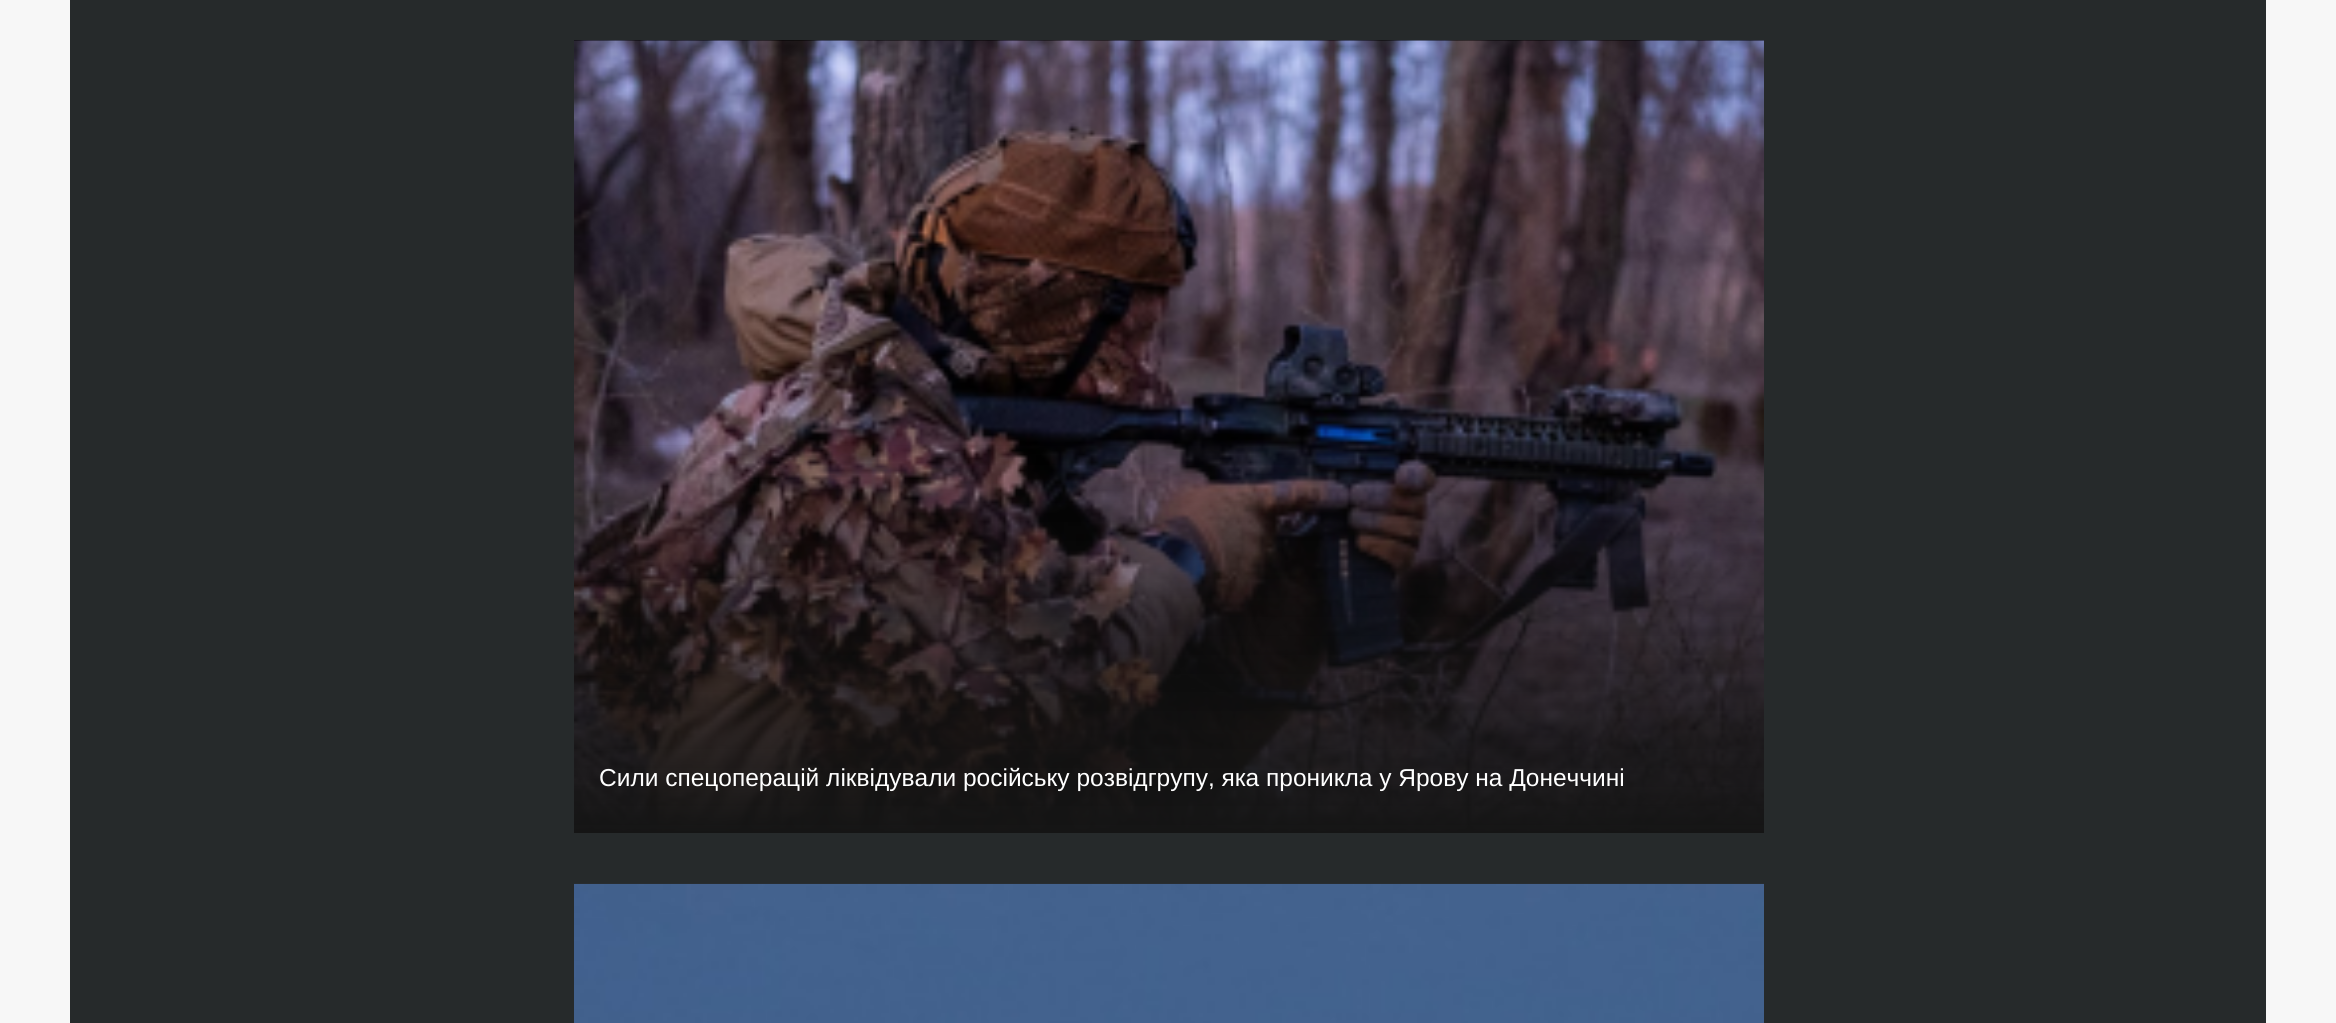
import math
import cairo

surface = cairo.ImageSurface(cairo.FORMAT_RGB24, 2336, 1023)
ctx = cairo.Context(surface)
options = cairo.FontOptions()
options.set_hint_metrics(cairo.HINT_METRICS_OFF)
options.set_hint_style(cairo.HINT_STYLE_NONE)
ctx.set_font_options(options)
ctx.set_miter_limit(4)


def set_color(code):
    ctx.set_source_rgb(*(v / 255 for v in bytes.fromhex(code[-6:])))


def draw_text(x, y, s, family, size, color, bold=False, italic=False):
    ctx.select_font_face(family, cairo.FONT_SLANT_ITALIC if italic else cairo.FONT_SLANT_NORMAL, cairo.FONT_WEIGHT_BOLD if bold else cairo.FONT_WEIGHT_NORMAL)
    ctx.set_font_size(size)
    set_color(color)
    ctx.move_to(x, y)
    ctx.show_text(s)


def fill_rect(x, y, w, h, color):
    set_color(color)
    ctx.rectangle(x, y, w, h)
    ctx.fill()


def draw_image(path, x, y, w, h):
    ctx.save()
    ctx.set_source_surface(cairo.ImageSurface.create_from_png(path), x, y)
    ctx.rectangle(x, y, w, h)
    ctx.fill()
    ctx.restore()


set_color("#f7f7f7")
ctx.paint()
fill_rect(70, 0, 2196, 1023, "#262a2b")
fill_rect(574, 40, 1190, 1, "#000000")
draw_image("assets/img1.png", 574, 40, 1190, 791)
gradient = cairo.LinearGradient(1169, 833, 1169, 40)
gradient.add_color_stop_rgba(0, 0.082, 0.082, 0.082, 1)
gradient.add_color_stop_rgba(0.5, 0.082, 0.082, 0.082, 0)
ctx.set_source(gradient)
ctx.rectangle(574, 445, 1190, 388)
ctx.fill()
draw_text(599, 786, "Сили спецоперацій ліквідували російську розвідгрупу, яка проникла у Ярову на Донеччині", "Liberation Sans", 24.5, "#ffffff")
draw_image("assets/img2.png", 574, 883, 1190, 140)
surface.write_to_png("output.png")
